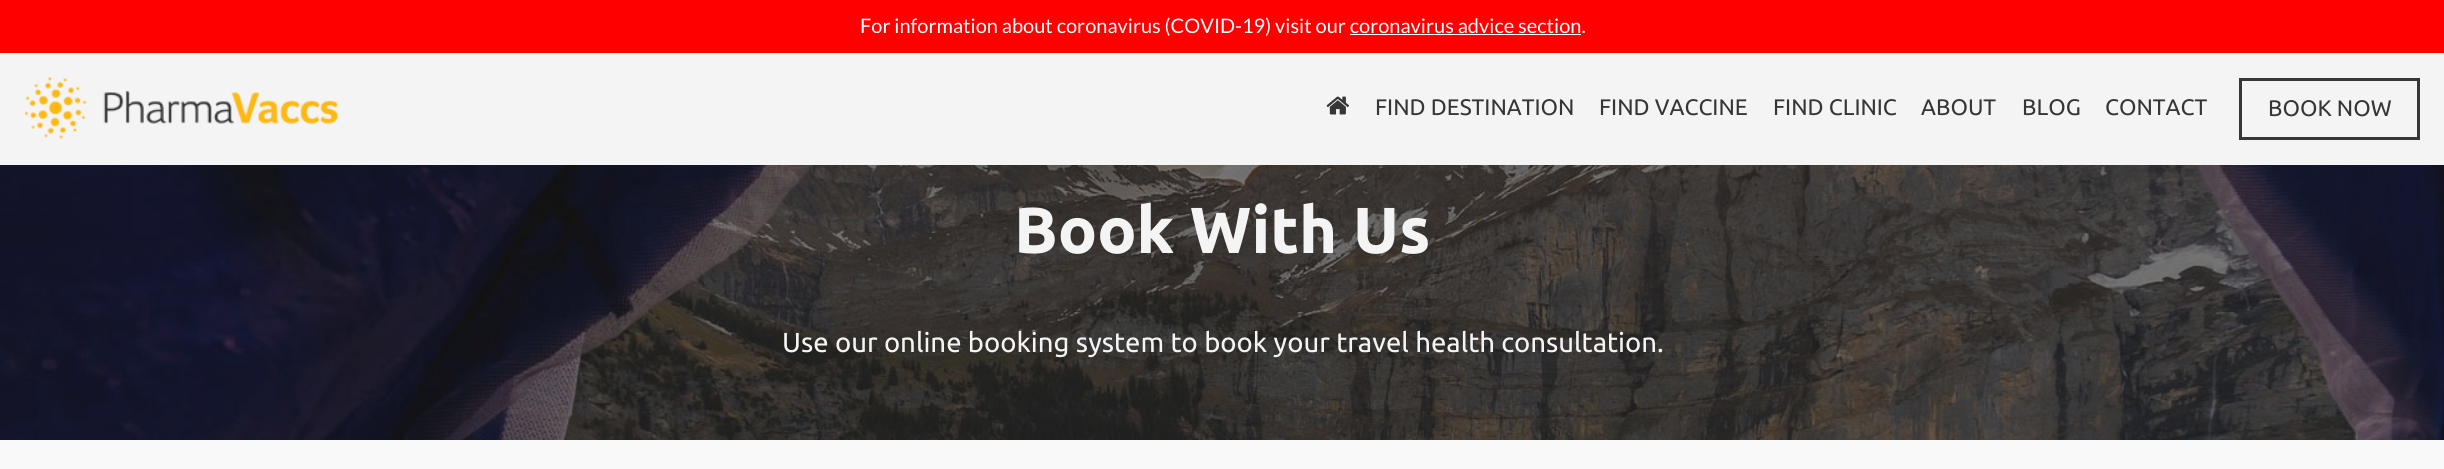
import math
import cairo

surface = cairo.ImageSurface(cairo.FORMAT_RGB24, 2444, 469)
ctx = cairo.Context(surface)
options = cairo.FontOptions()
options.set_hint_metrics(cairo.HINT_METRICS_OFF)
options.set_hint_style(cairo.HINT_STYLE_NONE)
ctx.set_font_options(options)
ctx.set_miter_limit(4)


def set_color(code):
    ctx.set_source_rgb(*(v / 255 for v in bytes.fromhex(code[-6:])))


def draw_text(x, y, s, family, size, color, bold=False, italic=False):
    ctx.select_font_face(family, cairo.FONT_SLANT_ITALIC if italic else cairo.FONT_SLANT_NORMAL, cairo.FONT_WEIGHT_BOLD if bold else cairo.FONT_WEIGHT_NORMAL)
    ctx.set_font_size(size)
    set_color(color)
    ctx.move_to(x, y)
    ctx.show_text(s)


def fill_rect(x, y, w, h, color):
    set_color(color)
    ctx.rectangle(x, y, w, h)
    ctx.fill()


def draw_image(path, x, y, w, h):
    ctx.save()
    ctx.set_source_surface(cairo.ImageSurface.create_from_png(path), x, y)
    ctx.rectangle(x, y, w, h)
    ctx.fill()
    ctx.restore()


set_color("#f9f9f9")
ctx.paint()
fill_rect(0, 0, 2444, 53, "#ff0000")
draw_text(860, 33, "For information about coronavirus (COVID-19) visit our coronavirus advice section.", "Lato", 20, "#ffffff")
fill_rect(1350, 34, 231, 1, "#ffffff")
fill_rect(0, 53, 2444, 112, "#f4f4f4")
draw_image("assets/img1.png", 25, 77, 313, 62)
draw_image("assets/img2.png", 1326, 96, 24, 19)
draw_text(1375, 115, "FIND DESTINATION", "Ubuntu", 22.5, "#363636")
draw_text(1599, 115, "FIND VACCINE", "Ubuntu", 22.5, "#363636")
draw_text(1773, 115, "FIND CLINIC", "Ubuntu", 22.5, "#363636")
draw_text(1921, 115, "ABOUT", "Ubuntu", 22.5, "#363636")
draw_text(2022, 115, "BLOG", "Ubuntu", 22.5, "#363636")
draw_text(2105, 115, "CONTACT", "Ubuntu", 22.5, "#363636")
ctx.rectangle(2240.5, 79.5, 178, 59)
ctx.set_line_width(3)
ctx.stroke()
draw_text(2268, 116, "BOOK NOW", "Ubuntu", 22.5, "#363636")
draw_image("assets/img3.png", 0, 165, 2444, 275)
draw_text(1014, 253, "Book With Us", "Ubuntu", 65, "#f4f4f4", bold=True)
draw_text(782, 352, "Use our online booking system to book your travel health consultation.", "Ubuntu", 27.5, "#f4f4f4")
surface.write_to_png("output.png")
